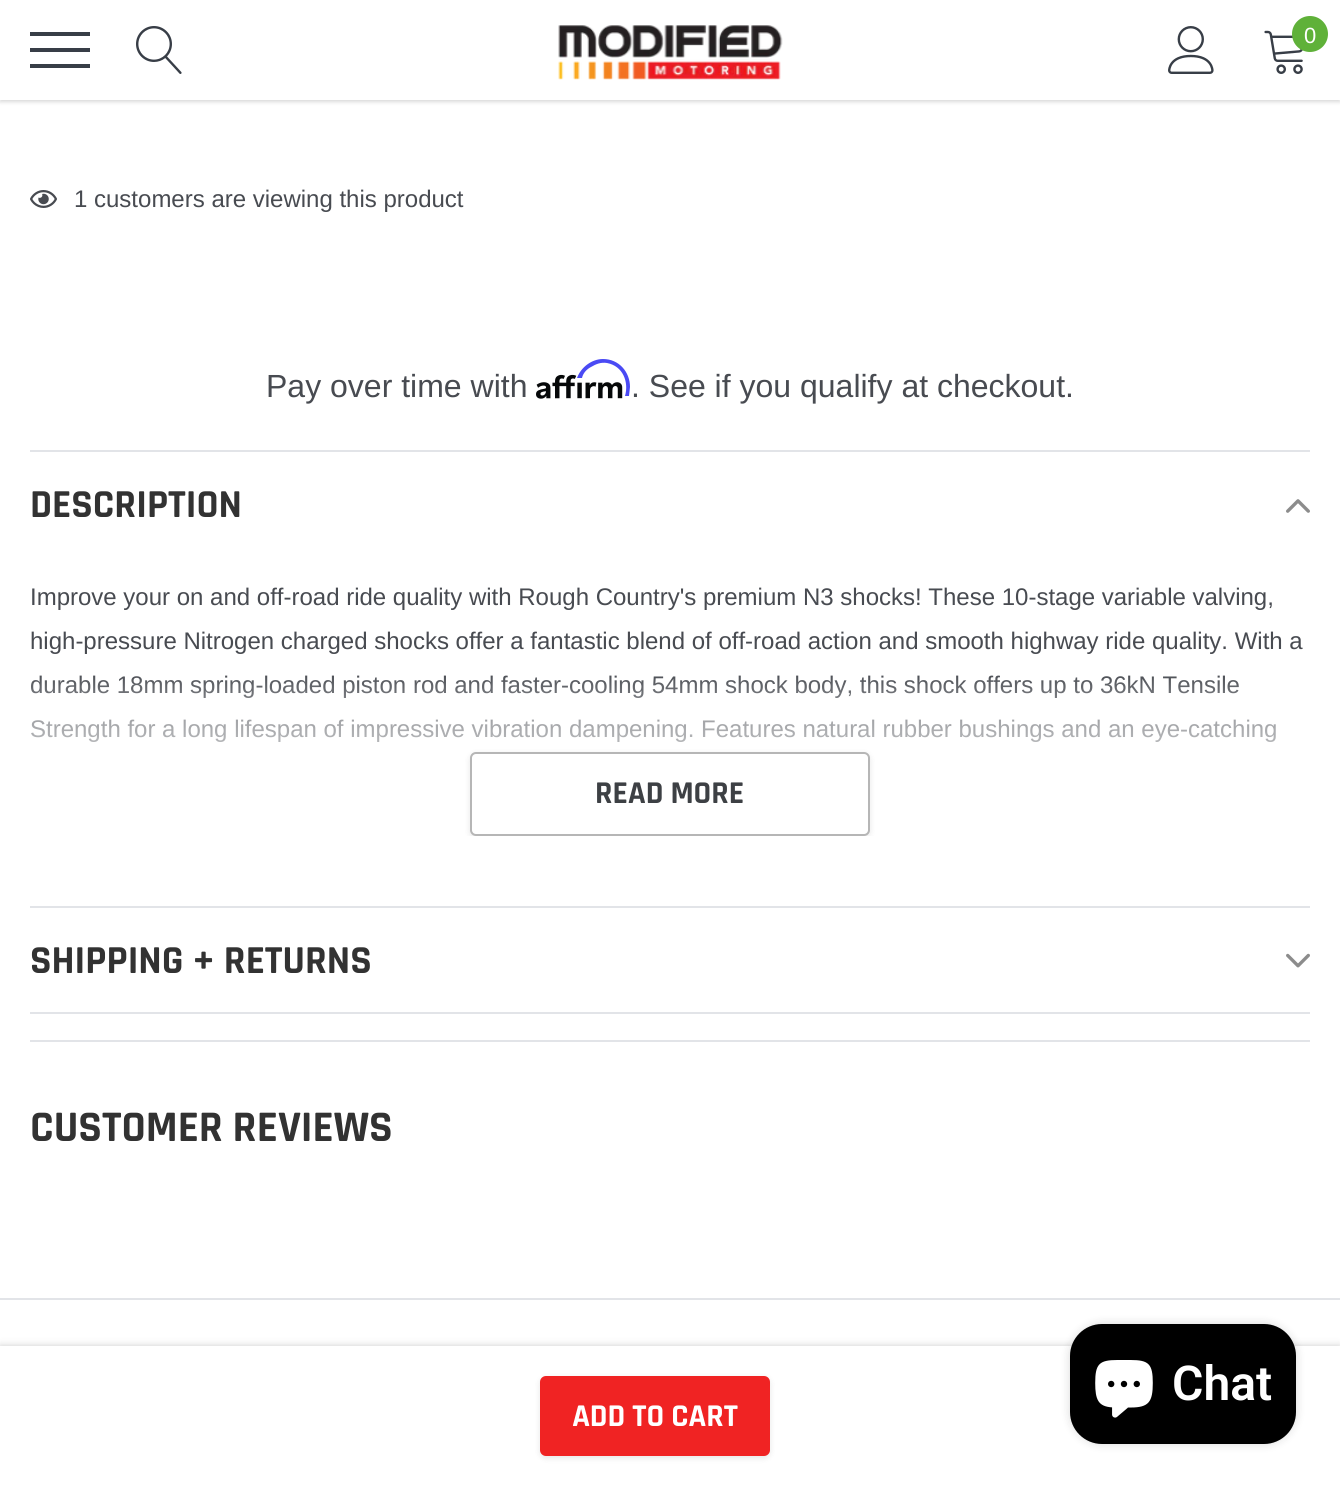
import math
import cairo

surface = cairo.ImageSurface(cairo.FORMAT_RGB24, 1340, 1486)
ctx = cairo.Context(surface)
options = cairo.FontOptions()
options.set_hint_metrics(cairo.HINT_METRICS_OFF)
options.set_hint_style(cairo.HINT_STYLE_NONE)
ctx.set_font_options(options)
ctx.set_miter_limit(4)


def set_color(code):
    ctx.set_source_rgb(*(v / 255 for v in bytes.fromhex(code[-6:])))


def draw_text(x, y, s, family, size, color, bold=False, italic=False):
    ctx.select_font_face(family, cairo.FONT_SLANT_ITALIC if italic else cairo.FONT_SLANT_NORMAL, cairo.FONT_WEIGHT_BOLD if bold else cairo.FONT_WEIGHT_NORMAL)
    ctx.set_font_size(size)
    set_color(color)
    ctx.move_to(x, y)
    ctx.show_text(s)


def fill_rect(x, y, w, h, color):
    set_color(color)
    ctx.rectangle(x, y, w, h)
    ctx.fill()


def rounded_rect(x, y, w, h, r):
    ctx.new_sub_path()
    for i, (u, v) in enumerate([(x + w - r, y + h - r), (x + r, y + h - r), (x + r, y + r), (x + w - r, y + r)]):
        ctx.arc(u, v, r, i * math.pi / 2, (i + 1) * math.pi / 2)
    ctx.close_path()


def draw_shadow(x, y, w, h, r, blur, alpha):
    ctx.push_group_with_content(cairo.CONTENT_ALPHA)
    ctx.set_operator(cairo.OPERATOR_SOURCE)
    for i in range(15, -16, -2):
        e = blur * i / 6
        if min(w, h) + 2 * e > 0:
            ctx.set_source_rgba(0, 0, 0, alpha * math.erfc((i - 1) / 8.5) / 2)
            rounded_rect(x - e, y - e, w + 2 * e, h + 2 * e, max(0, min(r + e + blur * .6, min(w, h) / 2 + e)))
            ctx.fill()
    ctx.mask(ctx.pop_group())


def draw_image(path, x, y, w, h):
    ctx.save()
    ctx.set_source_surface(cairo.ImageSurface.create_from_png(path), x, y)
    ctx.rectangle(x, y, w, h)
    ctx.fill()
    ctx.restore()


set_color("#ffffff")
ctx.paint()
set_color("#000000")
draw_shadow(0, 2, 1340, 100, 0, 2, 0.15)
fill_rect(0, 0, 1340, 100, "#ffffff")
fill_rect(30, 48, 60, 4, "#383e47")
fill_rect(30, 32, 60, 4, "#383e47")
fill_rect(30, 64, 60, 4, "#383e47")
draw_image("assets/img1.png", 136, 26, 46, 48)
draw_image("assets/img2.png", 558, 25, 225, 55)
draw_image("assets/img3.png", 1168, 26, 46, 48)
draw_image("assets/img4.png", 1264, 30, 39, 44)
set_color("#5fb139")
ctx.arc(1310, 34, 18, 0, 2 * math.pi)
ctx.fill()
draw_text(1304, 43, "0", "Arimo", 22, "#ffffff")
draw_image("assets/img5.png", 30, 190, 27, 18)
draw_text(74, 207, "1 customers are viewing this product", "Arimo", 24, "#484b51")
set_color("#000000")
draw_shadow(0, 1346, 1340, 140, 0, 4, 0.2)
fill_rect(0, 1346, 1340, 140, "#ffffff")
set_color("#000000")
draw_shadow(540, 1378, 230, 80, 6, 3, 0.1)
set_color("#f02323")
rounded_rect(541, 1377, 228, 78, 5)
ctx.fill_preserve()
ctx.stroke()
draw_text(572, 1426, "ADD TO CART", "Rajdhani", 32, "#ffffff", bold=True)
draw_text(266, 397, "Pay over time with", "Arimo", 32, "#484b51")
draw_image("assets/img6.png", 536, 374, 87, 25)
set_color("#4a4af4")
ctx.new_path()
ctx.move_to(603, 359)
ctx.curve_to(592, 359, 581, 367, 577, 378)
ctx.line_to(582, 378)
ctx.curve_to(583, 373, 587, 369, 591, 367)
ctx.curve_to(596, 364, 601, 362, 607, 363)
ctx.curve_to(623, 366, 629, 382, 625, 396)
ctx.line_to(629, 396)
ctx.line_to(630, 387)
ctx.curve_to(630, 372, 619, 359, 603, 359)
ctx.close_path()
ctx.fill()
draw_text(631, 397, ". See if you qualify at checkout.", "Arimo", 32, "#484b51")
fill_rect(30, 1012, 1280, 2, "#e2e4e8")
fill_rect(30, 450, 1280, 2, "#e2e4e8")
draw_text(30, 517, "DESCRIPTION", "Rajdhani", 40, "#323232", bold=True)
draw_image("assets/img7.png", 1286, 499, 24, 14)
draw_text(30, 605, "Improve your on and off-road ride quality with Rough Country's premium N3 shocks! These 10-stage variable valving,", "Arimo", 24, "#484b51")
draw_text(30, 649, "high-pressure Nitrogen charged shocks offer a fantastic blend of off-road action and smooth highway ride quality. With a", "Arimo", 24, "#484b51")
draw_text(30, 693, "durable 18mm spring-loaded piston rod and faster-cooling 54mm shock body, this shock offers up to 36kN Tensile", "Arimo", 24, "#484b51")
draw_text(30, 737, "Strength for a long lifespan of impressive vibration dampening. Features natural rubber bushings and an eye-catching", "Arimo", 24, "#484b51")
gradient = cairo.LinearGradient(670, 672, 670, 836)
gradient.add_color_stop_rgba(0, 1, 1, 1, 0)
gradient.add_color_stop_rgba(0.3, 1, 1, 1, 0.5)
gradient.add_color_stop_rgba(1, 1, 1, 1, 1)
ctx.set_source(gradient)
ctx.rectangle(31, 676, 1245, 66)
ctx.fill()
ctx.save()
ctx.rectangle(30, 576, 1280, 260)
ctx.clip()
set_color("#000000")
draw_shadow(470, 754, 400, 84, 6, 3, 0.1)
ctx.restore()
set_color("#ffffff")
rounded_rect(471, 753, 398, 82, 5)
ctx.fill_preserve()
set_color("#b6b6b6")
ctx.stroke()
draw_text(595, 803, "READ MORE", "Rajdhani", 32, "#3d4044", bold=True)
fill_rect(30, 906, 1280, 2, "#e2e4e8")
draw_text(30, 973, "SHIPPING + RETURNS", "Rajdhani", 40, "#323232", bold=True)
draw_image("assets/img8.png", 1286, 953, 24, 15)
fill_rect(30, 1040, 1280, 2, "#e2e4e8")
draw_text(30, 1141, "CUSTOMER REVIEWS", "Rajdhani", 44, "#323232", bold=True)
fill_rect(0, 1298, 1340, 2, "#e2e4e8")
set_color("#000000")
draw_shadow(1070, 1324, 226, 120, 32, 5, 0.15)
set_color("#000000")
rounded_rect(1070, 1324, 226, 120, 32)
ctx.fill()
draw_image("assets/img9.png", 1095, 1360, 58, 58)
draw_text(1172, 1400, "Chat", "Roboto SemiBold", 48, "#ffffff")
surface.write_to_png("output.png")
